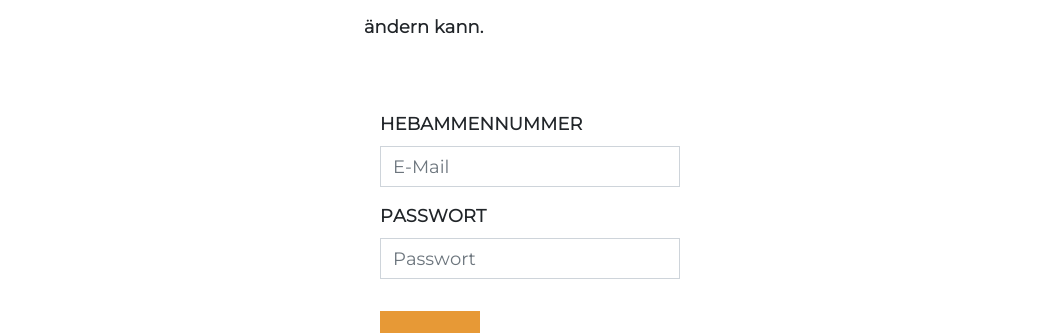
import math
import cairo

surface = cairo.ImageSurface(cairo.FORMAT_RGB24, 1060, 333)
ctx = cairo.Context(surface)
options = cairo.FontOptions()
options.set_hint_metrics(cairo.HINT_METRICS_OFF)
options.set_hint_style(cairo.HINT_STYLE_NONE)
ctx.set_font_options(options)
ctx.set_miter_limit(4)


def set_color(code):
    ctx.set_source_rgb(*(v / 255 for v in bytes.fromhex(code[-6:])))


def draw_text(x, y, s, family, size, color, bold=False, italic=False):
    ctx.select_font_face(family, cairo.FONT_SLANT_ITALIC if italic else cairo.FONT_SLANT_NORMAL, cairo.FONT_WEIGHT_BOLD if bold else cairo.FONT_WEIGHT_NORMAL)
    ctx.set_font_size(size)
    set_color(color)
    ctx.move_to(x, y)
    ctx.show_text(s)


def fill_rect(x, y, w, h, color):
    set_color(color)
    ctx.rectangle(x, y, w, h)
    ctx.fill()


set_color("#ffffff")
ctx.paint()
draw_text(364, 33, "ändern kann.", "Montserrat", 18, "#212529", bold=True)
draw_text(380, 130, "HEBAMMENNUMMER", "Montserrat", 18, "#212529", bold=True)
ctx.rectangle(380.5, 146.5, 299, 40)
set_color("#ced4da")
ctx.set_line_width(1)
ctx.stroke()
draw_text(393, 173, "E-Mail", "Montserrat Thin", 18, "#6c757d")
draw_text(380, 222, "PASSWORT", "Montserrat", 18, "#212529", bold=True)
ctx.rectangle(380.5, 238.5, 299, 40)
set_color("#ced4da")
ctx.stroke()
draw_text(393, 265, "Passwort", "Montserrat Thin", 18, "#6c757d")
fill_rect(380, 311, 100, 22, "#e79936")
surface.write_to_png("output.png")
